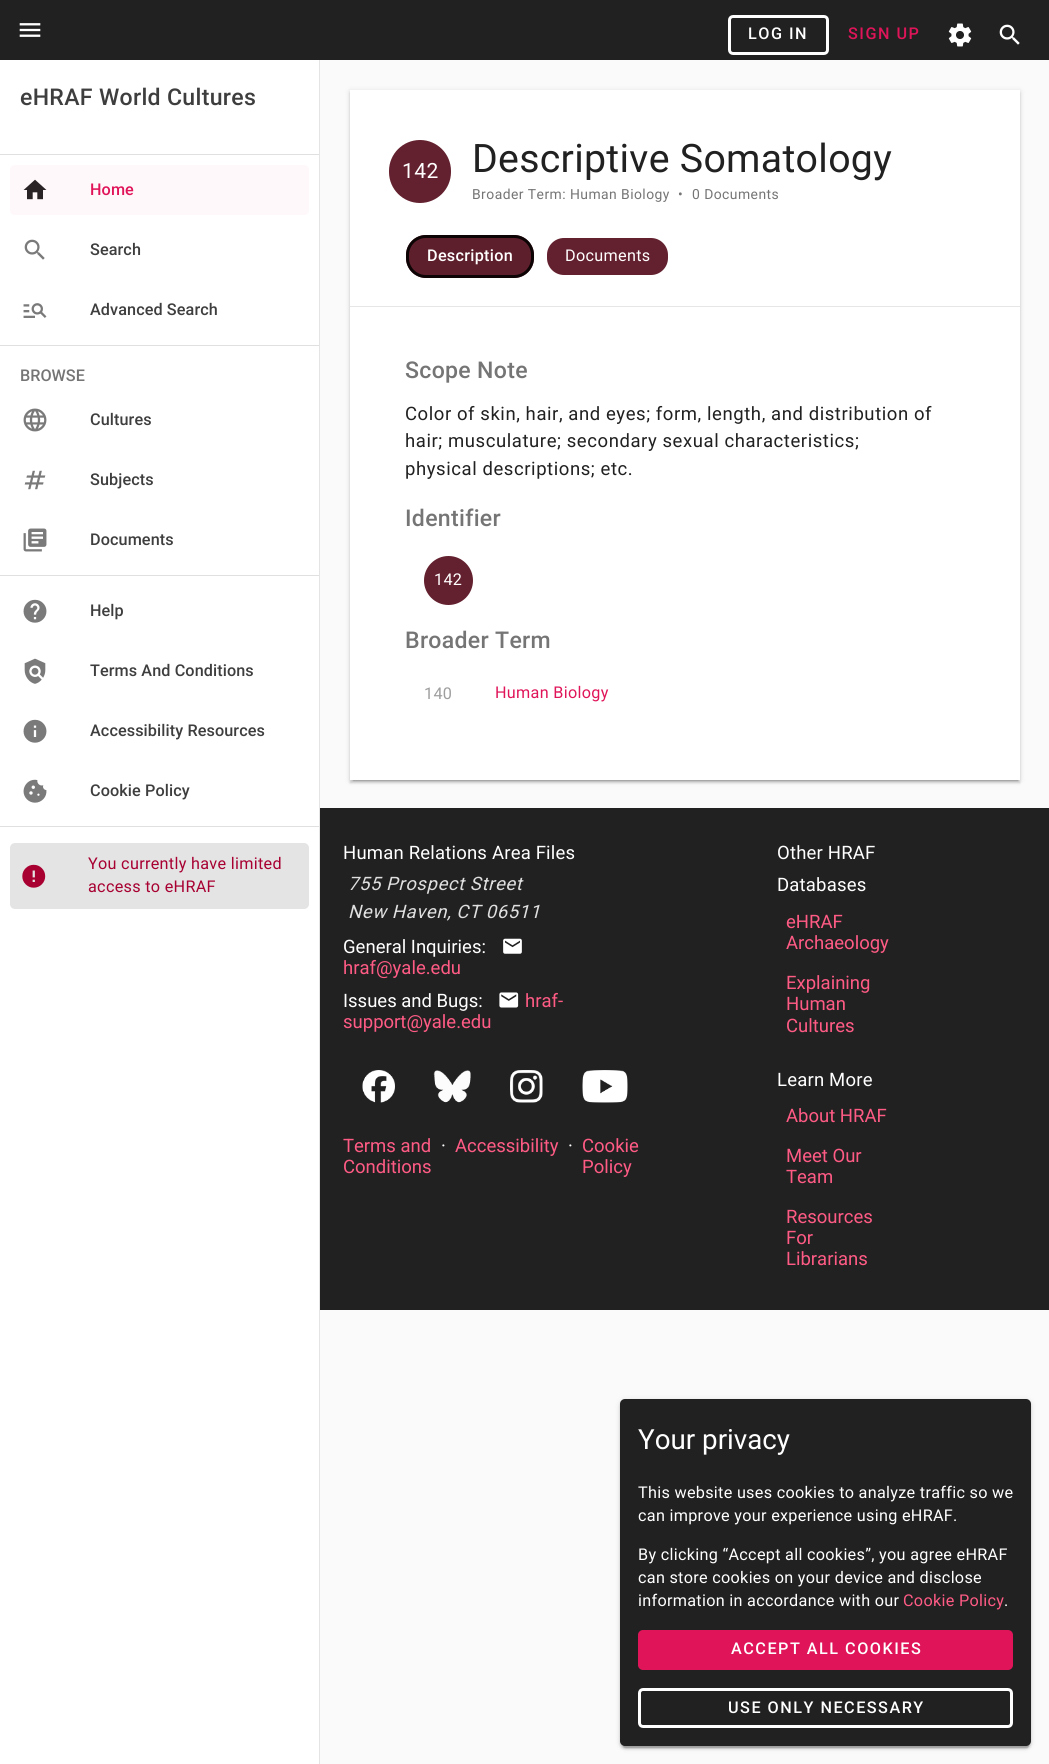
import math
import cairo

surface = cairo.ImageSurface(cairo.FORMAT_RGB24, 1049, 1764)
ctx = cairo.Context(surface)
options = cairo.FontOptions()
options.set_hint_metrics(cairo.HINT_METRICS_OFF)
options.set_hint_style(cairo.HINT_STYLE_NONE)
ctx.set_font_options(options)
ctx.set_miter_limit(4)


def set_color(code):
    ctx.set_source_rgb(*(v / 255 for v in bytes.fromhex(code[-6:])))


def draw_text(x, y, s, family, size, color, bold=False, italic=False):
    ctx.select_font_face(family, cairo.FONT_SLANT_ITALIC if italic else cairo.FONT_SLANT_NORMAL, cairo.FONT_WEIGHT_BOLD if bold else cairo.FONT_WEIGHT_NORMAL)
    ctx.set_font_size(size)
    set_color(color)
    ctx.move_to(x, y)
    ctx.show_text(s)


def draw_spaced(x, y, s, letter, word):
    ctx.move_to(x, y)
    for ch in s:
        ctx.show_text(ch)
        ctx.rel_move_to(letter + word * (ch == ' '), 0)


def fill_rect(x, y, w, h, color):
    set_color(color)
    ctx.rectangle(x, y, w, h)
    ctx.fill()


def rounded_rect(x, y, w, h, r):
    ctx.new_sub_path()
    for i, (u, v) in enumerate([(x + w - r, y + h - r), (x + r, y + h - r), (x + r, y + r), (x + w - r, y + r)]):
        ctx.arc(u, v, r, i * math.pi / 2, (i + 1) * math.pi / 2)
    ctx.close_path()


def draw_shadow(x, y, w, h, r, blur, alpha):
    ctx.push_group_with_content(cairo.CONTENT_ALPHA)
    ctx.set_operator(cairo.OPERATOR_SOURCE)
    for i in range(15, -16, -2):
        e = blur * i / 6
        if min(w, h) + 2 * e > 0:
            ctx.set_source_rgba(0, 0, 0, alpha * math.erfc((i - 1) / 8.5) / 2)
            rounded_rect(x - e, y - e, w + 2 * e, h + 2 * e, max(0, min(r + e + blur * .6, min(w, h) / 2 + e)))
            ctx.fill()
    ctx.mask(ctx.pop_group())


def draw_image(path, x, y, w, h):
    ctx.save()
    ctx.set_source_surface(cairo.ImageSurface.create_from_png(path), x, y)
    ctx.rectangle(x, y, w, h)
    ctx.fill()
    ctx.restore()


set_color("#fafafa")
ctx.paint()
fill_rect(0, 0, 1049, 60, "#212121")
draw_image("assets/img1.png", 19, 23, 22, 14)
rounded_rect(729.5, 16.5, 98, 37, 3.5)
set_color("#ffffff")
ctx.set_line_width(3)
ctx.stroke()
ctx.select_font_face("Roboto Medium")
ctx.set_font_size(16.2)
draw_spaced(748, 39, "LOG IN", 1.5, 0)
set_color("#e01559")
draw_spaced(848, 39, "SIGN UP", 1.5, 0)
draw_image("assets/img2.png", 948, 23, 24, 24)
draw_image("assets/img3.png", 999, 24, 21, 21)
fill_rect(0, 60, 319, 1704, "#ffffff")
fill_rect(319, 60, 1, 1704, "#e4e4e4")
ctx.set_font_size(23.1)
set_color("#3e3e3e")
draw_spaced(20, 105, "eHRAF World Cultures", 0.3, 0)
fill_rect(0, 154, 319, 1, "#e0e0e0")
draw_image("assets/img4.png", 23, 179, 24, 21)
ctx.set_source_rgba(1, 0.357, 0.522, 0.04)
ctx.new_path()
ctx.move_to(15, 165)
ctx.curve_to(12, 165, 10, 167, 10, 170)
ctx.line_to(10, 210)
ctx.curve_to(10, 213, 12, 215, 15, 215)
ctx.line_to(304, 215)
ctx.curve_to(307, 215, 309, 213, 309, 210)
ctx.line_to(309, 170)
ctx.curve_to(309, 167, 307, 165, 304, 165)
ctx.close_path()
ctx.fill()
ctx.set_font_size(16.2)
set_color("#e01559")
draw_spaced(90, 195, "Home", 0.1, 0)
draw_image("assets/img5.png", 24, 239, 21, 21)
set_color("#3e3e3e")
draw_spaced(90, 255, "Search", 0.1, 0)
draw_image("assets/img6.png", 23, 303, 24, 15)
draw_spaced(90, 315, "Advanced Search", 0.1, 0)
fill_rect(0, 345, 319, 1, "#e0e0e0")
draw_text(20, 381, "BROWSE", "Roboto Medium", 16.2, "#757575")
draw_image("assets/img7.png", 23, 408, 24, 24)
set_color("#3e3e3e")
draw_spaced(90, 425, "Cultures", 0.1, 0)
draw_image("assets/img8.png", 24, 470, 22, 20)
draw_spaced(90, 485, "Subjects", 0.1, 0)
draw_image("assets/img9.png", 23, 528, 24, 24)
draw_spaced(90, 545, "Documents", 0.1, 0)
fill_rect(0, 575, 319, 1, "#e0e0e0")
draw_image("assets/img10.png", 23, 599, 24, 24)
set_color("#3e3e3e")
draw_spaced(90, 616, "Help", 0.1, 0)
draw_image("assets/img11.png", 24, 658, 22, 26)
draw_spaced(90, 676, "Terms And Conditions", 0.1, 0)
draw_image("assets/img12.png", 23, 719, 24, 24)
draw_spaced(90, 736, "Accessibility Resources", 0.1, 0)
draw_image("assets/img13.png", 23, 779, 24, 24)
draw_spaced(90, 796, "Cookie Policy", 0.1, 0)
fill_rect(0, 826, 319, 1, "#e0e0e0")
set_color("#e4e4e4")
rounded_rect(10, 843, 299, 66, 5)
ctx.fill()
draw_image("assets/img14.png", 22, 864, 24, 24)
ctx.select_font_face("Roboto")
set_color("#a70031")
draw_spaced(88, 869, "You currently have limited", 0.3, 0)
draw_spaced(88, 892, "access to eHRAF", 0.3, 0)
set_color("#000000")
draw_shadow(350, 91, 670, 690, 0, 3, 0.12)
draw_shadow(350, 93, 670, 690, 0, 1, 0.14)
draw_shadow(353, 96, 665, 685, 0, 0.5, 0.2)
fill_rect(350, 90, 670, 690, "#ffffff")
set_color("#63202e")
rounded_rect(389, 140, 62, 63, 31)
ctx.fill()
ctx.set_font_size(21)
set_color("#ffffff")
draw_spaced(402, 178, "142", 0.5, 0)
ctx.set_font_size(39.25)
set_color("#212121")
draw_spaced(472, 172, "Descriptive Somatology", 0.3, 0)
ctx.set_font_size(13.9)
set_color("#757575")
draw_spaced(472, 199, "Broader Term: Human Biology", 0.45, 0)
draw_spaced(678, 199, "•", 0.45, 0)
draw_spaced(692, 199, "0 Documents", 0.45, 0)
set_color("#63202e")
rounded_rect(406, 235, 128, 43, 20)
ctx.fill()
rounded_rect(407.5, 236.5, 125, 40, 18.5)
ctx.set_source_rgba(0, 0, 0, 0.87)
ctx.stroke()
ctx.set_source_rgba(0.129, 0.129, 0.129, 0.08)
ctx.new_path()
ctx.move_to(428, 238)
ctx.curve_to(417, 238, 409, 246, 409, 256)
ctx.curve_to(409, 267, 417, 275, 428, 275)
ctx.line_to(512, 275)
ctx.curve_to(523, 275, 531, 267, 531, 256)
ctx.curve_to(531, 246, 523, 238, 512, 238)
ctx.close_path()
ctx.fill()
ctx.select_font_face("Roboto Medium")
ctx.set_font_size(16.2)
set_color("#ffffff")
draw_spaced(427, 261, "Description", 0.3, 0)
set_color("#63202e")
rounded_rect(545.5, 236.5, 124, 40, 18.5)
ctx.fill_preserve()
set_color("#ffffff")
ctx.stroke()
ctx.select_font_face("Roboto")
draw_spaced(565, 261, "Documents", 0.3, 0)
fill_rect(350, 306, 670, 1, "#e6e6e6")
ctx.select_font_face("Roboto Medium")
ctx.set_font_size(23.1)
set_color("#757575")
draw_spaced(405, 378, "Scope Note", 0.3, 0)
ctx.select_font_face("Roboto")
ctx.set_font_size(18.5)
set_color("#212121")
draw_spaced(405, 420, "Color of skin, hair, and eyes; form, length, and distribution of", 0.58, 0)
draw_spaced(405, 447, "hair; musculature; secondary sexual characteristics;", 0.58, 0)
draw_spaced(405, 475, "physical descriptions; etc.", 0.58, 0)
ctx.select_font_face("Roboto Medium")
ctx.set_font_size(23.1)
set_color("#757575")
draw_spaced(405, 526, "Identifier", 0.3, 0)
set_color("#63202e")
ctx.new_path()
ctx.arc(448.5, 580.5, 24.5, 0, 2 * math.pi)
ctx.fill()
ctx.select_font_face("Roboto")
ctx.set_font_size(16.2)
set_color("#ffffff")
draw_spaced(434, 585, "142", 0.3, 0)
ctx.select_font_face("Roboto Medium")
ctx.set_font_size(23.1)
set_color("#757575")
draw_spaced(405, 648, "Broader Term", 0.3, 0)
ctx.select_font_face("Roboto")
ctx.set_font_size(16.2)
set_color("#9e9e9e")
draw_spaced(424, 699, "140", 0.3, 0)
set_color("#e01559")
draw_spaced(495, 698, "Human Biology", 0.3, 0)
fill_rect(320, 808, 729, 502, "#212121")
ctx.set_font_size(18.5)
set_color("#ffffff")
draw_spaced(343, 859, "Human Relations Area Files", 0.2, 0)
ctx.select_font_face("Roboto", cairo.FONT_SLANT_ITALIC)
set_color("#dfdfdf")
draw_spaced(348, 890, "755 Prospect Street", 0.58, 0)
draw_spaced(348, 918, "New Haven, CT 06511", 0.58, 0)
draw_text(343, 953, "General Inquiries:", "Roboto", 18.5, "#ffffff")
draw_image("assets/img15.png", 503, 938, 19, 16)
draw_text(343, 974, "hraf@yale.edu", "Roboto", 18.5, "#ff5b85")
draw_image("assets/img16.png", 499, 992, 20, 16)
draw_text(525, 1007, "hraf-", "Roboto", 18.5, "#ff5b85")
draw_text(343, 1028, "support@yale.edu", "Roboto", 18.5, "#ff5b85")
draw_text(343, 1007, "Issues and Bugs:", "Roboto", 18.5, "#ffffff")
draw_image("assets/img17.png", 362, 1070, 33, 33)
draw_image("assets/img18.png", 433, 1070, 38, 33)
draw_image("assets/img19.png", 510, 1070, 33, 33)
draw_image("assets/img20.png", 582, 1070, 46, 33)
draw_text(343, 1152, "Terms and", "Roboto", 18.5, "#ff5b85")
draw_text(343, 1173, "Conditions", "Roboto", 18.5, "#ff5b85")
draw_text(441, 1152, "·", "Roboto", 18.5, "#ffffff")
draw_text(455, 1152, "Accessibility", "Roboto", 18.5, "#ff5b85")
draw_text(568, 1152, "·", "Roboto", 18.5, "#ffffff")
draw_text(582, 1152, "Cookie", "Roboto", 18.5, "#ff5b85")
draw_text(582, 1173, "Policy", "Roboto", 18.5, "#ff5b85")
set_color("#ffffff")
draw_spaced(777, 859, "Other HRAF", 0.2, 0)
draw_spaced(777, 891, "Databases", 0.2, 0)
draw_text(786, 928, "eHRAF", "Roboto", 18.5, "#ff5b85")
draw_text(786, 949, "Archaeology", "Roboto", 18.5, "#ff5b85")
draw_text(786, 989, "Explaining", "Roboto", 18.5, "#ff5b85")
draw_text(786, 1010, "Human", "Roboto", 18.5, "#ff5b85")
draw_text(786, 1032, "Cultures", "Roboto", 18.5, "#ff5b85")
set_color("#ffffff")
draw_spaced(777, 1086, "Learn More", 0.2, 0)
draw_text(786, 1122, "About HRAF", "Roboto", 18.5, "#ff5b85")
draw_text(786, 1162, "Meet Our", "Roboto", 18.5, "#ff5b85")
draw_text(786, 1183, "Team", "Roboto", 18.5, "#ff5b85")
draw_text(786, 1223, "Resources", "Roboto", 18.5, "#ff5b85")
draw_text(786, 1244, "For", "Roboto", 18.5, "#ff5b85")
draw_text(786, 1265, "Librarians", "Roboto", 18.5, "#ff5b85")
set_color("#000000")
draw_shadow(620, 1400, 411, 348, 5, 3, 0.12)
draw_shadow(620, 1401, 411, 348, 5, 1, 0.14)
draw_shadow(623, 1405, 406, 343, 2.5, 0.5, 0.2)
set_color("#212121")
rounded_rect(620, 1399, 411, 347, 5)
ctx.fill()
draw_text(638, 1449, "Your privacy", "Roboto", 27.75, "#ffffff")
ctx.set_font_size(16.2)
draw_spaced(638, 1498, "This website uses cookies to analyze traffic so we", 0.3, 0)
draw_spaced(638, 1521, "can improve your experience using eHRAF.", 0.3, 0)
draw_spaced(638, 1560, "By clicking “Accept all cookies”, you agree eHRAF", 0.3, 0)
draw_spaced(638, 1583, "can store cookies on your device and disclose", 0.3, 0)
draw_spaced(638, 1606, "information in accordance with our", 0.3, 0)
set_color("#ff5b85")
draw_spaced(903, 1606, "Cookie Policy", 0.3, 0)
set_color("#ffffff")
draw_spaced(1004, 1606, ".", 0.3, 0)
set_color("#e01559")
rounded_rect(638, 1630, 375, 40, 5)
ctx.fill()
ctx.select_font_face("Roboto Medium")
set_color("#ffffff")
draw_spaced(731, 1654, "ACCEPT ALL COOKIES", 1.5, 0)
rounded_rect(639.5, 1689.5, 372, 37, 3.5)
ctx.stroke()
draw_spaced(728, 1713, "USE ONLY NECESSARY", 1.5, 0)
surface.write_to_png("output.png")
